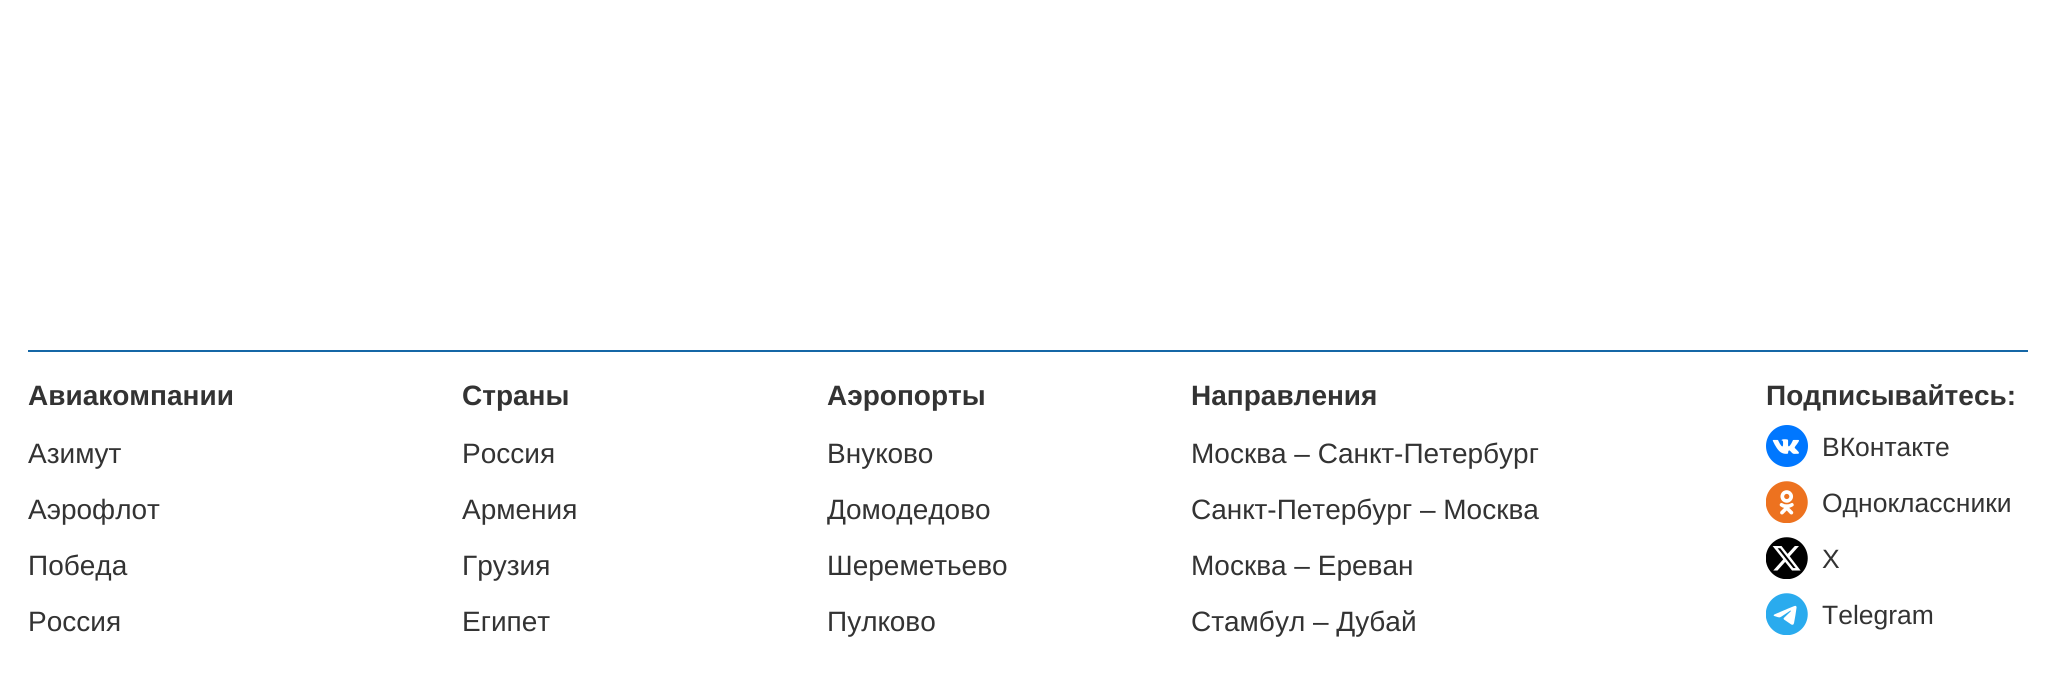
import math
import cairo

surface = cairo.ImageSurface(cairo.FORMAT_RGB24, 2055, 680)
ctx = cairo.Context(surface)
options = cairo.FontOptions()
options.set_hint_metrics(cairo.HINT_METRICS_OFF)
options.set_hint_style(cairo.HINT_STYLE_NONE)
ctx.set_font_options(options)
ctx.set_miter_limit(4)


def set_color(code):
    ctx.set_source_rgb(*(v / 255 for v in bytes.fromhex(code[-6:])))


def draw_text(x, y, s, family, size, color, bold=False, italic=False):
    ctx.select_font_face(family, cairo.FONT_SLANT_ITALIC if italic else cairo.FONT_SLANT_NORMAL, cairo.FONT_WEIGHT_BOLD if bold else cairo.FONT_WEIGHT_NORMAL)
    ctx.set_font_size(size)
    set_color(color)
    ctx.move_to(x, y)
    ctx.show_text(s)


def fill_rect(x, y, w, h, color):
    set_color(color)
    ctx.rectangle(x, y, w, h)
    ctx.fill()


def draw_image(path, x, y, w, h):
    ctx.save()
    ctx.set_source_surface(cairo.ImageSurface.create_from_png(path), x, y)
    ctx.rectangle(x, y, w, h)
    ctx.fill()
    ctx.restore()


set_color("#ffffff")
ctx.paint()
fill_rect(28, 350, 2000, 2, "#1567a6")
draw_text(28, 405, "Авиакомпании", "Liberation Sans", 28, "#333333", bold=True)
draw_text(28, 463, "Азимут", "Liberation Sans", 28, "#333333")
draw_text(28, 519, "Аэрофлот", "Liberation Sans", 28, "#333333")
draw_text(28, 575, "Победа", "Liberation Sans", 28, "#333333")
draw_text(28, 631, "Россия", "Liberation Sans", 28, "#333333")
draw_text(462, 405, "Страны", "Liberation Sans", 28, "#333333", bold=True)
draw_text(462, 463, "Россия", "Liberation Sans", 28, "#333333")
draw_text(462, 519, "Армения", "Liberation Sans", 28, "#333333")
draw_text(462, 575, "Грузия", "Liberation Sans", 28, "#333333")
draw_text(462, 631, "Египет", "Liberation Sans", 28, "#333333")
draw_text(827, 405, "Аэропорты", "Liberation Sans", 28, "#333333", bold=True)
draw_text(827, 463, "Внуково", "Liberation Sans", 28, "#333333")
draw_text(827, 519, "Домодедово", "Liberation Sans", 28, "#333333")
draw_text(827, 575, "Шереметьево", "Liberation Sans", 28, "#333333")
draw_text(827, 631, "Пулково", "Liberation Sans", 28, "#333333")
draw_text(1191, 405, "Направления", "Liberation Sans", 28, "#333333", bold=True)
draw_text(1191, 463, "Москва – Санкт-Петербург", "Liberation Sans", 28, "#333333")
draw_text(1191, 519, "Санкт-Петербург – Москва", "Liberation Sans", 28, "#333333")
draw_text(1191, 575, "Москва – Ереван", "Liberation Sans", 28, "#333333")
draw_text(1191, 631, "Стамбул – Дубай", "Liberation Sans", 28, "#333333")
draw_text(1766, 405, "Подписывайтесь:", "Liberation Sans", 28, "#333333", bold=True)
draw_image("assets/img1.png", 1766, 425, 42, 42)
draw_text(1822, 456, "ВКонтакте", "Liberation Sans", 26.5, "#333333")
draw_image("assets/img2.png", 1766, 481, 42, 42)
draw_text(1822, 512, "Одноклассники", "Liberation Sans", 26.5, "#333333")
draw_image("assets/img3.png", 1766, 537, 42, 42)
draw_text(1822, 568, "X", "Liberation Sans", 26.5, "#333333")
draw_image("assets/img4.png", 1766, 593, 42, 42)
draw_text(1822, 624, "Telegram", "Liberation Sans", 26.5, "#333333")
surface.write_to_png("output.png")
